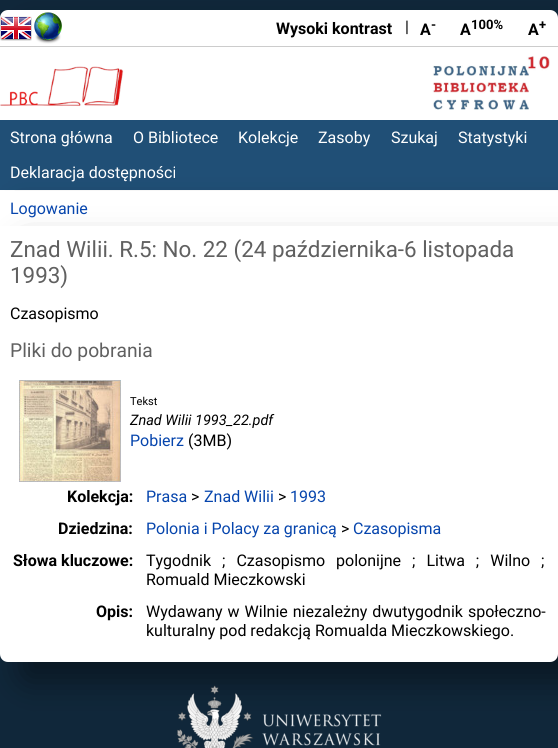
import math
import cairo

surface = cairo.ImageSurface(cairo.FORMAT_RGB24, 558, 748)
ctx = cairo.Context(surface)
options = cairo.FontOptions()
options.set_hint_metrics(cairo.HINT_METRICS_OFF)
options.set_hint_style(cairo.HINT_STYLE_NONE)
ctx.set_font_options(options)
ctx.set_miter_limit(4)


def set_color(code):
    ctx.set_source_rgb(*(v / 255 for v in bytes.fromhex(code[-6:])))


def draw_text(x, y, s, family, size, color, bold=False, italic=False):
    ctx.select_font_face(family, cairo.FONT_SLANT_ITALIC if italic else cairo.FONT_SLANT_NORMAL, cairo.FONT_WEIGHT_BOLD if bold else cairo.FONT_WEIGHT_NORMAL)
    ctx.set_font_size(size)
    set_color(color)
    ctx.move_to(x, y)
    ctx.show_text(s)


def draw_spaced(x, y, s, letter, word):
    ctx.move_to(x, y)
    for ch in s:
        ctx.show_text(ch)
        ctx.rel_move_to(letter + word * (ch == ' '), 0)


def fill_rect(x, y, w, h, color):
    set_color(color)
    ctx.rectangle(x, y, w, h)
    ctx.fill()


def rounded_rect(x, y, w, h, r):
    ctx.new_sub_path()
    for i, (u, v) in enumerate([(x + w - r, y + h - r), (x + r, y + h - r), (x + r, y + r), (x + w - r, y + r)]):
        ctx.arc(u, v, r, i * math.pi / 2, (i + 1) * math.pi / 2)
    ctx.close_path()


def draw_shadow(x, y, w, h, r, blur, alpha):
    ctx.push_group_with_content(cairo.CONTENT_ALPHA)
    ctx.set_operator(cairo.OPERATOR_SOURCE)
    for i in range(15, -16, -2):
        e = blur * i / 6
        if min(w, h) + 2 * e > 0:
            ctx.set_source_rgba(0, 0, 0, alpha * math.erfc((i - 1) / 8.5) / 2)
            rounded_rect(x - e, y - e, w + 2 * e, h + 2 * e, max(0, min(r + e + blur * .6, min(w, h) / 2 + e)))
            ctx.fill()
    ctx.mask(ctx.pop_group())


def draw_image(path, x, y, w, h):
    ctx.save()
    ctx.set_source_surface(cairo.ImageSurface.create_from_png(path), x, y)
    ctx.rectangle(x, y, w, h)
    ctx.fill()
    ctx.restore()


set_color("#10273a")
ctx.paint()
set_color("#000000")
draw_shadow(20, 30, 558, 181, 8, 16, 0.4)
set_color("#ffffff")
ctx.new_path()
ctx.move_to(8, 10)
ctx.line_to(550, 10)
ctx.curve_to(554.5, 10, 558, 13.5, 558, 18)
ctx.line_to(558, 191)
ctx.line_to(0, 191)
ctx.line_to(0, 18)
ctx.curve_to(0, 13.5, 3.5, 10, 8, 10)
ctx.close_path()
ctx.fill()
draw_image("assets/img1.png", 0, 16, 32, 25)
draw_image("assets/img2.png", 34, 12, 28, 32)
fill_rect(0, 46, 558, 1, "#cccccc")
draw_text(276, 34, "Wysoki kontrast", "Roboto", 16, "#000000", bold=True)
draw_text(405, 32, "|", "Roboto", 16, "#000000")
draw_text(420, 35, "A", "Roboto", 16, "#000000", bold=True)
draw_text(431, 29, "-", "Roboto", 13, "#000000", bold=True)
draw_text(460, 35, "A", "Roboto", 16, "#000000", bold=True)
draw_text(471, 29, "100%", "Roboto", 13, "#000000", bold=True)
draw_text(528, 35, "A", "Roboto", 16, "#000000", bold=True)
draw_text(539, 29, "+", "Roboto", 13, "#000000", bold=True)
draw_image("assets/img3.png", 0, 56, 550, 54)
fill_rect(0, 120, 558, 70, "#204f76")
draw_text(10, 143, "Strona główna", "Roboto", 16, "#ffffff")
draw_text(133, 143, "O Bibliotece", "Roboto", 16, "#ffffff")
draw_text(238, 143, "Kolekcje", "Roboto", 16, "#ffffff")
draw_text(318, 143, "Zasoby", "Roboto", 16, "#ffffff")
draw_text(391, 143, "Szukaj", "Roboto", 16, "#ffffff")
draw_text(458, 143, "Statystyki", "Roboto", 16, "#ffffff")
set_color("#000000")
draw_shadow(20, 211, 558, 35, 0, 16, 0.4)
draw_text(10, 178, "Deklaracja dostępności", "Roboto", 16, "#ffffff")
fill_rect(0, 191, 558, 35, "#ffffff")
set_color("#000000")
draw_shadow(20, 246, 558, 436, 8, 16, 0.4)
draw_text(10, 214, "Logowanie", "Roboto", 16, "#0645ad")
set_color("#ffffff")
ctx.new_path()
ctx.move_to(0, 226)
ctx.line_to(558, 226)
ctx.line_to(558, 654)
ctx.curve_to(558, 658.5, 554.5, 662, 550, 662)
ctx.line_to(8, 662)
ctx.curve_to(3.5, 662, 0, 658.5, 0, 654)
ctx.close_path()
ctx.fill()
draw_text(10, 257, "Znad Wilii. R.5: No. 22 (24 października-6 listopada", "Roboto", 22.4, "#606060")
draw_text(10, 283, "1993)", "Roboto", 22.4, "#606060")
draw_text(10, 319, "Czasopismo", "Roboto", 16, "#000000")
draw_text(10, 357, "Pliki do pobrania", "Roboto", 19.25, "#606060")
draw_image("assets/img4.png", 19, 380, 102, 102)
draw_text(130, 405, "Tekst", "Roboto", 11, "#000000")
draw_text(130, 425, "Znad Wilii 1993_22.pdf", "Roboto", 14.5, "#000000", italic=True)
draw_text(130, 446, "Pobierz", "Roboto", 16, "#0645ad")
draw_text(188, 446, "(3MB)", "Roboto", 16, "#000000")
draw_text(67, 502, "Kolekcja:", "Roboto", 16, "#000000", bold=True)
draw_text(146, 502, "Prasa", "Roboto", 16, "#0645ad")
draw_text(191, 502, ">", "Roboto", 16, "#000000")
draw_text(204, 502, "Znad Wilii", "Roboto", 16, "#0645ad")
draw_text(278, 502, ">", "Roboto", 16, "#000000")
draw_text(290, 502, "1993", "Roboto", 16, "#0645ad")
draw_text(58, 534, "Dziedzina:", "Roboto", 16, "#000000", bold=True)
draw_text(146, 534, "Polonia i Polacy za granicą", "Roboto", 16, "#0645ad")
draw_text(341, 534, ">", "Roboto", 16, "#000000")
draw_text(353, 534, "Czasopisma", "Roboto", 16, "#0645ad")
draw_text(13, 566, "Słowa kluczowe:", "Roboto", 16, "#000000", bold=True)
ctx.select_font_face("Roboto")
draw_spaced(146, 566, "Tygodnik ; Czasopismo polonijne ; Litwa ; Wilno ;", 0, 7)
draw_text(146, 585, "Romuald Mieczkowski", "Roboto", 16, "#000000")
draw_text(96, 617, "Opis:", "Roboto", 16, "#000000", bold=True)
ctx.select_font_face("Roboto")
draw_spaced(146, 617, "Wydawany w Wilnie niezależny dwutygodnik społeczno-", 0, 1)
draw_text(146, 636, "kulturalny pod redakcją Romualda Mieczkowskiego.", "Roboto", 16, "#000000")
draw_image("assets/img5.png", 177, 685, 205, 63)
surface.write_to_png("output.png")
